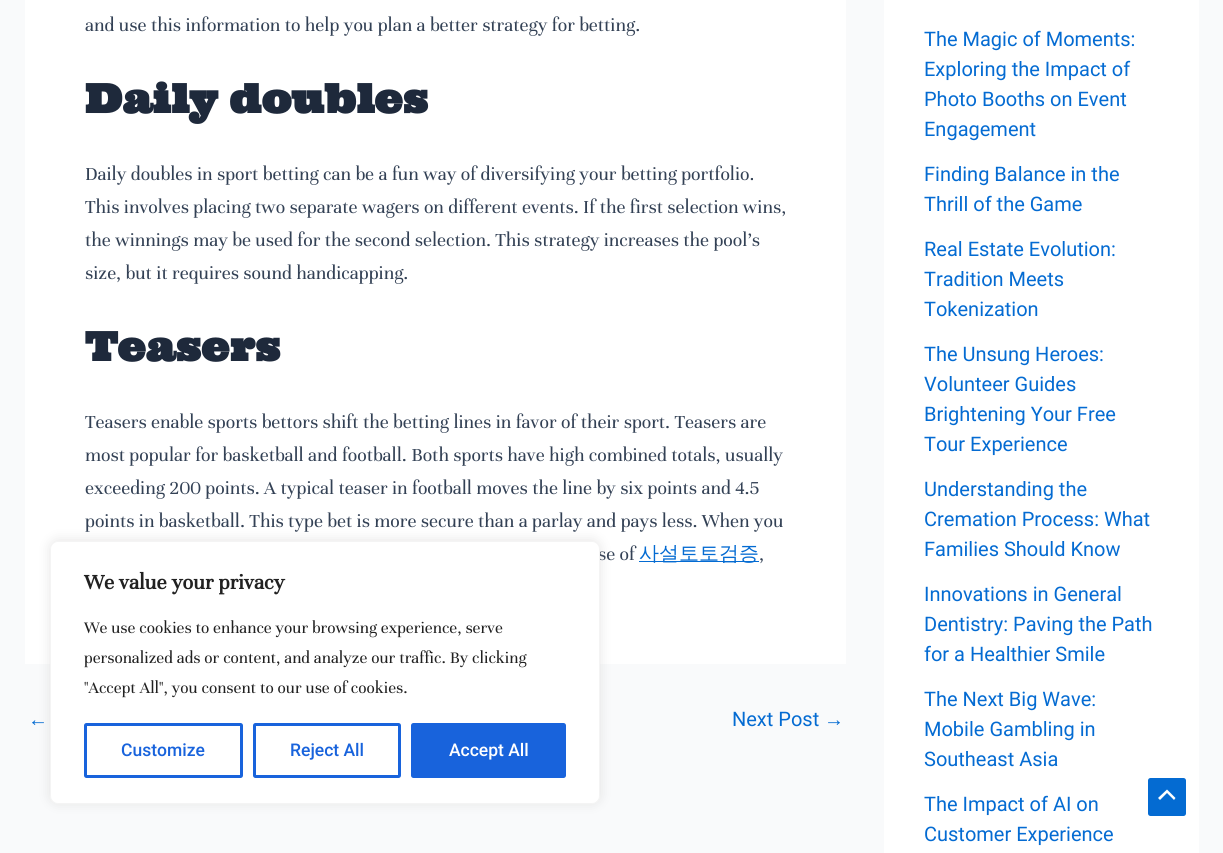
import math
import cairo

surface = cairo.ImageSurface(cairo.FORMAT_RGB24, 1223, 853)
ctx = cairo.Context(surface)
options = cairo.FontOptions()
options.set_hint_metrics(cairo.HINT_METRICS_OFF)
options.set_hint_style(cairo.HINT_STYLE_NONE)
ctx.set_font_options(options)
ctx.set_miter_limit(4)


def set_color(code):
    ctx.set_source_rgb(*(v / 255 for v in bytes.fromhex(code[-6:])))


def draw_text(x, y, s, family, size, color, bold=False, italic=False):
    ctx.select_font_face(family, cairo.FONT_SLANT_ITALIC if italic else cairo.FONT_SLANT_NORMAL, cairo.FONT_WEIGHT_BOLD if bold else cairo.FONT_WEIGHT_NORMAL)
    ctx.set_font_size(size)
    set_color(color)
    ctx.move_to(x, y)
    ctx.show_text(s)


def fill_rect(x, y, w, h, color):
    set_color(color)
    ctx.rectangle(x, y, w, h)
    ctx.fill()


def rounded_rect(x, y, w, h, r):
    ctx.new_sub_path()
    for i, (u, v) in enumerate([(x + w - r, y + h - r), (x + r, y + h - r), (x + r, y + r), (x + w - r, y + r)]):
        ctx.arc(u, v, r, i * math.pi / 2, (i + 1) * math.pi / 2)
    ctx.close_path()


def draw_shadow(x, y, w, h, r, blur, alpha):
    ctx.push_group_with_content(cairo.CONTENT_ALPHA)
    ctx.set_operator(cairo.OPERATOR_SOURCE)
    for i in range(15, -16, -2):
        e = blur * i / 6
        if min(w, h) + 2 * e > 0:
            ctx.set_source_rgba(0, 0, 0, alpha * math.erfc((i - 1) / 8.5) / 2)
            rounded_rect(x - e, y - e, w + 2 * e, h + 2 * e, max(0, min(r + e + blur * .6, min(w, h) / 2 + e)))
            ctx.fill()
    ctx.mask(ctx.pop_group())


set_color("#f9fafb")
ctx.paint()
fill_rect(25, 0, 821, 664, "#ffffff")
draw_text(85, 31, "and use this information to help you plan a better strategy for betting.", "Unna", 20, "#334155")
draw_text(85, 113, "Daily doubles", "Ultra", 40, "#1e293b", bold=True)
draw_text(85, 180, "Daily doubles in sport betting can be a fun way of diversifying your betting portfolio.", "Unna", 20, "#334155")
draw_text(85, 213, "This involves placing two separate wagers on different events. If the first selection wins,", "Unna", 20, "#334155")
draw_text(85, 246, "the winnings may be used for the second selection. This strategy increases the pool’s", "Unna", 20, "#334155")
draw_text(85, 279, "size, but it requires sound handicapping.", "Unna", 20, "#334155")
draw_text(85, 361, "Teasers", "Ultra", 40, "#1e293b", bold=True)
draw_text(85, 428, "Teasers enable sports bettors shift the betting lines in favor of their sport. Teasers are", "Unna", 20, "#334155")
draw_text(85, 461, "most popular for basketball and football. Both sports have high combined totals, usually", "Unna", 20, "#334155")
draw_text(85, 494, "exceeding 200 points. A typical teaser in football moves the line by six points and 4.5", "Unna", 20, "#334155")
draw_text(85, 527, "points in basketball. This type bet is more secure than a parlay and pays less. When you", "Unna", 20, "#334155")
draw_text(598, 560, "se of", "Unna", 20, "#334155")
fill_rect(639, 561, 120, 1, "#046bd2")
draw_text(639, 560, "사설토토검증", "WenQuanYi Zen Hei Medium", 20, "#046bd2")
draw_text(759, 560, ",", "Unna", 20, "#334155")
draw_text(28, 726, "←", "Liberation Sans", 20, "#046bd2")
draw_text(732, 726, "Next Post", "Roboto", 20, "#046bd2")
draw_text(824, 726, "→", "Liberation Sans", 20, "#046bd2")
fill_rect(884, 0, 315, 853, "#ffffff")
draw_text(924, 46, "The Magic of Moments:", "Roboto", 20, "#046bd2")
draw_text(924, 76, "Exploring the Impact of", "Roboto", 20, "#046bd2")
draw_text(924, 106, "Photo Booths on Event", "Roboto", 20, "#046bd2")
draw_text(924, 136, "Engagement", "Roboto", 20, "#046bd2")
draw_text(924, 181, "Finding Balance in the", "Roboto", 20, "#046bd2")
draw_text(924, 211, "Thrill of the Game", "Roboto", 20, "#046bd2")
draw_text(924, 256, "Real Estate Evolution:", "Roboto", 20, "#046bd2")
draw_text(924, 286, "Tradition Meets", "Roboto", 20, "#046bd2")
draw_text(924, 316, "Tokenization", "Roboto", 20, "#046bd2")
draw_text(924, 361, "The Unsung Heroes:", "Roboto", 20, "#046bd2")
draw_text(924, 391, "Volunteer Guides", "Roboto", 20, "#046bd2")
draw_text(924, 421, "Brightening Your Free", "Roboto", 20, "#046bd2")
draw_text(924, 451, "Tour Experience", "Roboto", 20, "#046bd2")
draw_text(924, 496, "Understanding the", "Roboto", 20, "#046bd2")
draw_text(924, 526, "Cremation Process: What", "Roboto", 20, "#046bd2")
draw_text(924, 556, "Families Should Know", "Roboto", 20, "#046bd2")
draw_text(924, 601, "Innovations in General", "Roboto", 20, "#046bd2")
draw_text(924, 631, "Dentistry: Paving the Path", "Roboto", 20, "#046bd2")
draw_text(924, 661, "for a Healthier Smile", "Roboto", 20, "#046bd2")
draw_text(924, 706, "The Next Big Wave:", "Roboto", 20, "#046bd2")
draw_text(924, 736, "Mobile Gambling in", "Roboto", 20, "#046bd2")
draw_text(924, 766, "Southeast Asia", "Roboto", 20, "#046bd2")
draw_text(924, 811, "The Impact of AI on", "Roboto", 20, "#046bd2")
draw_text(924, 841, "Customer Experience", "Roboto", 20, "#046bd2")
set_color("#acabab")
draw_shadow(50, 540, 550, 263, 8, 6, 0.3)
set_color("#ffffff")
rounded_rect(50.5, 541.5, 549, 262, 7.5)
ctx.fill_preserve()
set_color("#f4f4f4")
ctx.set_line_width(1)
ctx.stroke()
draw_text(84, 589, "We value your privacy", "Unna", 22.5, "#212121", bold=True)
draw_text(84, 633, "We use cookies to enhance your browsing experience, serve", "Unna", 17.5, "#212121")
draw_text(84, 663, "personalized ads or content, and analyze our traffic. By clicking", "Unna", 17.5, "#212121")
draw_text(84, 693, "\"Accept All\", you consent to our use of cookies.", "Unna", 17.5, "#212121")
rounded_rect(85.5, 724.5, 156, 52, 1)
set_color("#1863dc")
ctx.set_line_width(3)
ctx.stroke()
draw_text(121, 756, "Customize", "Roboto Medium", 17.5, "#1863dc")
rounded_rect(254.5, 724.5, 145, 52, 1)
ctx.stroke()
draw_text(290, 756, "Reject All", "Roboto Medium", 17.5, "#1863dc")
rounded_rect(412.5, 724.5, 152, 52, 1)
ctx.fill_preserve()
ctx.stroke()
draw_text(449, 756, "Accept All", "Roboto Medium", 17.5, "#ffffff")
set_color("#046bd2")
rounded_rect(1148, 778, 38, 38, 2.5)
ctx.fill()
set_color("#ffffff")
ctx.new_path()
ctx.move_to(1175.5, 798)
ctx.line_to(1167, 789.5)
ctx.line_to(1158, 798)
ctx.line_to(1160, 800)
ctx.line_to(1167, 793)
ctx.line_to(1174, 800)
ctx.close_path()
ctx.fill()
surface.write_to_png("output.png")
